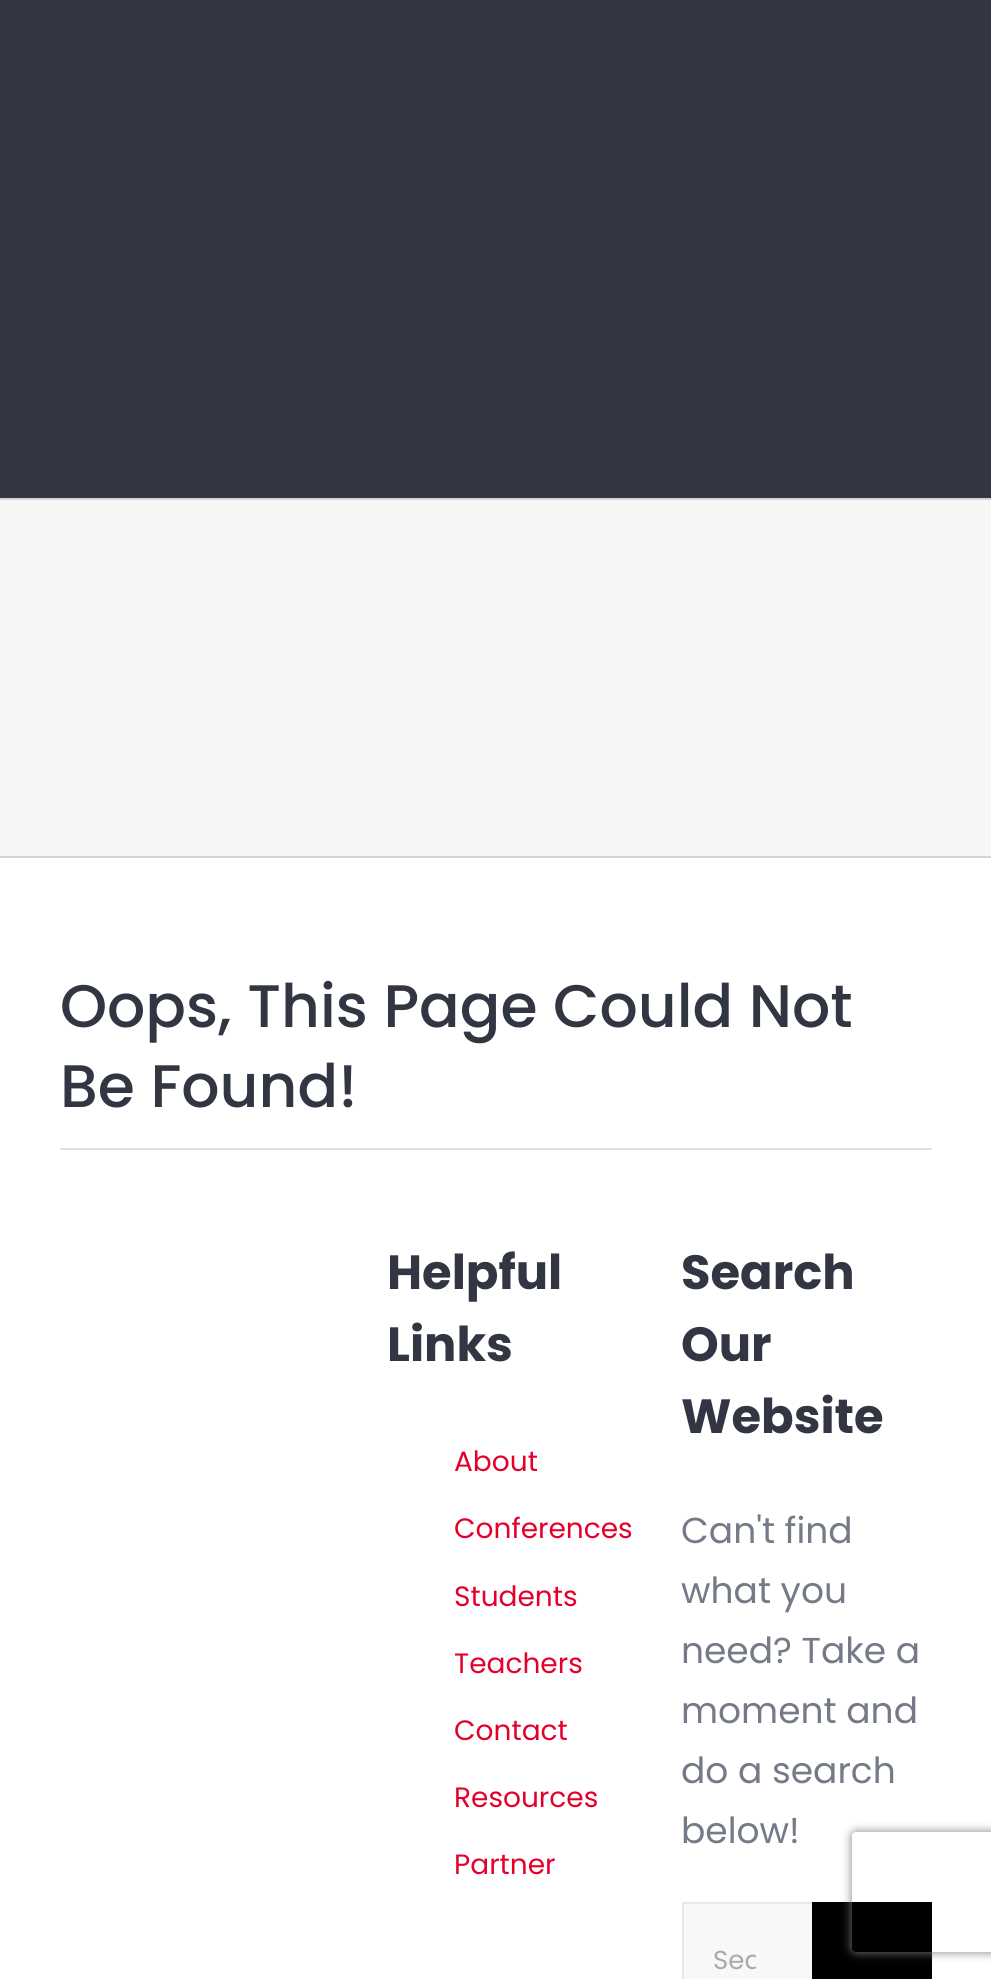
import math
import cairo

surface = cairo.ImageSurface(cairo.FORMAT_RGB24, 991, 1979)
ctx = cairo.Context(surface)
options = cairo.FontOptions()
options.set_hint_metrics(cairo.HINT_METRICS_OFF)
options.set_hint_style(cairo.HINT_STYLE_NONE)
ctx.set_font_options(options)
ctx.set_miter_limit(4)


def set_color(code):
    ctx.set_source_rgb(*(v / 255 for v in bytes.fromhex(code[-6:])))


def draw_text(x, y, s, family, size, color, bold=False, italic=False):
    ctx.select_font_face(family, cairo.FONT_SLANT_ITALIC if italic else cairo.FONT_SLANT_NORMAL, cairo.FONT_WEIGHT_BOLD if bold else cairo.FONT_WEIGHT_NORMAL)
    ctx.set_font_size(size)
    set_color(color)
    ctx.move_to(x, y)
    ctx.show_text(s)


def fill_rect(x, y, w, h, color):
    set_color(color)
    ctx.rectangle(x, y, w, h)
    ctx.fill()


def rounded_rect(x, y, w, h, r):
    ctx.new_sub_path()
    for i, (u, v) in enumerate([(x + w - r, y + h - r), (x + r, y + h - r), (x + r, y + r), (x + w - r, y + r)]):
        ctx.arc(u, v, r, i * math.pi / 2, (i + 1) * math.pi / 2)
    ctx.close_path()


def draw_shadow(x, y, w, h, r, blur, alpha):
    ctx.push_group_with_content(cairo.CONTENT_ALPHA)
    ctx.set_operator(cairo.OPERATOR_SOURCE)
    for i in range(15, -16, -2):
        e = blur * i / 6
        if min(w, h) + 2 * e > 0:
            ctx.set_source_rgba(0, 0, 0, alpha * math.erfc((i - 1) / 8.5) / 2)
            rounded_rect(x - e, y - e, w + 2 * e, h + 2 * e, max(0, min(r + e + blur * .6, min(w, h) / 2 + e)))
            ctx.fill()
    ctx.mask(ctx.pop_group())


set_color("#ffffff")
ctx.paint()
fill_rect(0, 0, 991, 498, "#323643")
fill_rect(0, 500, 991, 356, "#f6f6f6")
fill_rect(0, 498, 991, 2, "#d2d3d4")
fill_rect(0, 856, 991, 2, "#d2d3d4")
fill_rect(60, 1148, 872, 2, "#e0dede")
draw_text(60, 1027, "Oops, This Page Could Not", "Poppins Medium", 60, "#323643")
draw_text(60, 1107, "Be Found!", "Poppins Medium", 60, "#323643")
draw_text(387, 1289, "Helpful", "Poppins", 48, "#323643", bold=True)
draw_text(387, 1361, "Links", "Poppins", 48, "#323643", bold=True)
draw_text(454, 1471, "About", "Poppins", 28, "#e4002b")
draw_text(454, 1538, "Conferences", "Poppins", 28, "#e4002b")
draw_text(454, 1606, "Students", "Poppins", 28, "#e4002b")
draw_text(454, 1673, "Teachers", "Poppins", 28, "#e4002b")
draw_text(454, 1740, "Contact", "Poppins", 28, "#e4002b")
draw_text(454, 1807, "Resources", "Poppins", 28, "#e4002b")
draw_text(454, 1874, "Partner", "Poppins", 28, "#e4002b")
draw_text(681, 1289, "Search", "Poppins", 48, "#323643", bold=True)
draw_text(681, 1361, "Our", "Poppins", 48, "#323643", bold=True)
draw_text(681, 1433, "Website", "Poppins", 48, "#323643", bold=True)
draw_text(681, 1543, "Can't find", "Poppins", 36, "#747a87")
draw_text(681, 1603, "what you", "Poppins", 36, "#747a87")
draw_text(681, 1663, "need? Take a", "Poppins", 36, "#747a87")
draw_text(681, 1723, "moment and", "Poppins", 36, "#747a87")
draw_text(681, 1783, "do a search", "Poppins", 36, "#747a87")
draw_text(681, 1843, "below!", "Poppins", 36, "#747a87")
fill_rect(684, 1904, 128, 75, "#f8f8f8")
fill_rect(682, 1902, 130, 2, "#e8e8e8")
fill_rect(682, 1902, 2, 77, "#e8e8e8")
ctx.save()
ctx.rectangle(714, 1942, 42, 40)
ctx.clip()
draw_text(713, 1969, "Sea", "Poppins", 26, "#aaa9a9")
ctx.restore()
fill_rect(812, 1902, 120, 77, "#000000")
ctx.save()
ctx.set_fill_rule(cairo.FILL_RULE_EVEN_ODD)
ctx.new_path()
ctx.move_to(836, 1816)
ctx.line_to(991, 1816)
ctx.line_to(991, 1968)
ctx.line_to(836, 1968)
ctx.close_path()
ctx.move_to(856, 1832)
ctx.line_to(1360, 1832)
ctx.curve_to(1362, 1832, 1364, 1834, 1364, 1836)
ctx.line_to(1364, 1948)
ctx.curve_to(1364, 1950, 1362, 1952, 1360, 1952)
ctx.line_to(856, 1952)
ctx.curve_to(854, 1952, 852, 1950, 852, 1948)
ctx.line_to(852, 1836)
ctx.curve_to(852, 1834, 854, 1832, 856, 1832)
ctx.close_path()
ctx.clip()
set_color("#808080")
draw_shadow(852, 1832, 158, 120, 4, 5, 1)
ctx.restore()
surface.write_to_png("output.png")
